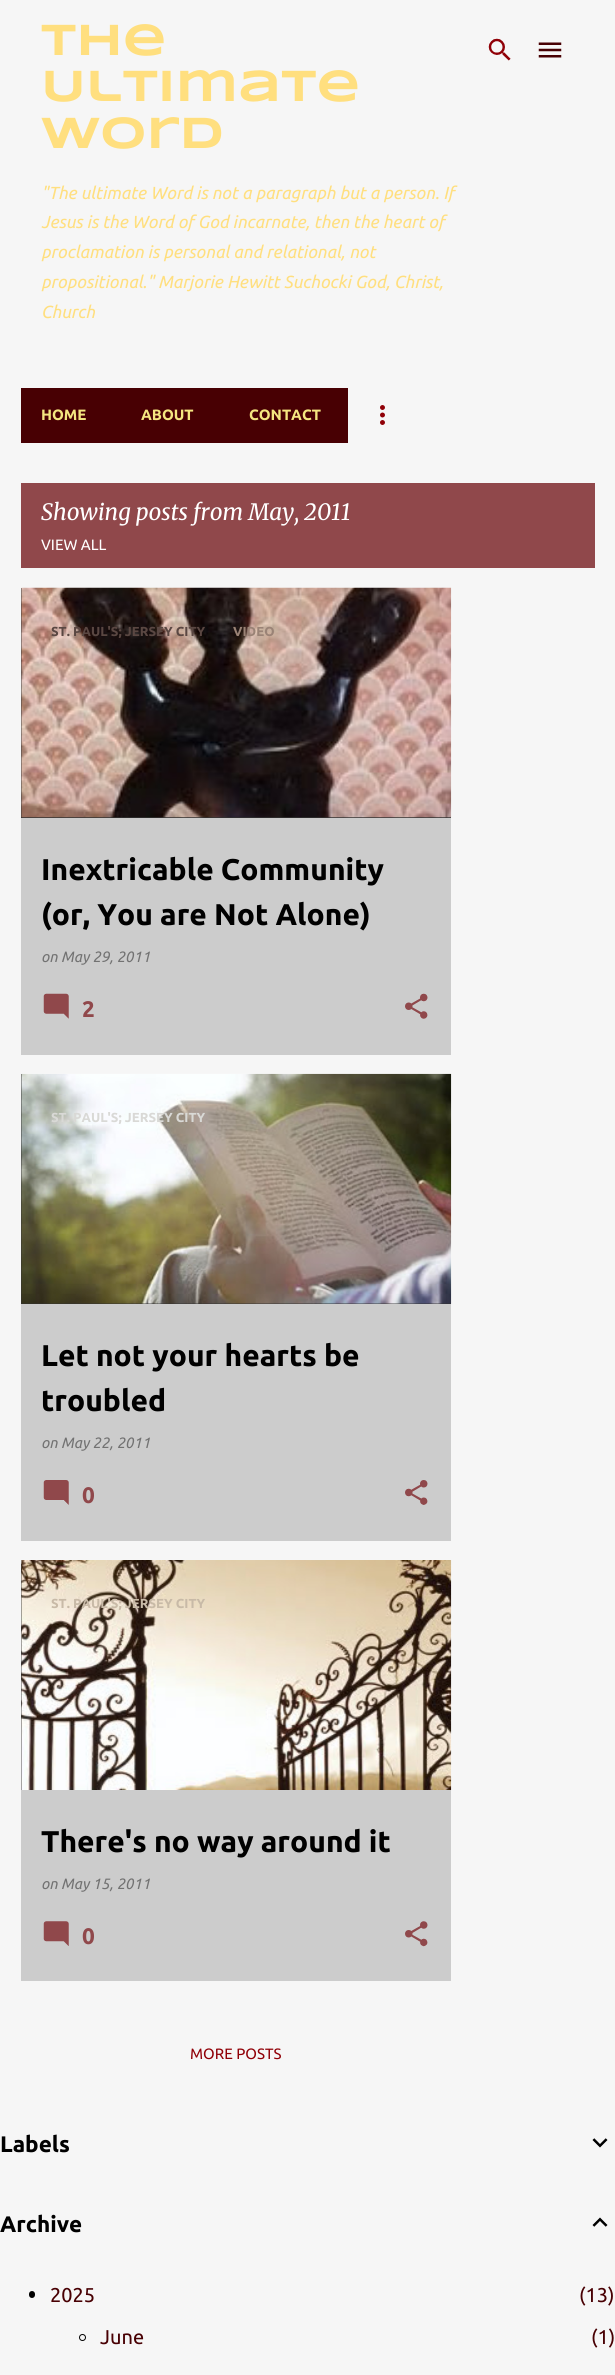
import math
import cairo

surface = cairo.ImageSurface(cairo.FORMAT_RGB24, 615, 2375)
ctx = cairo.Context(surface)
options = cairo.FontOptions()
options.set_hint_metrics(cairo.HINT_METRICS_OFF)
options.set_hint_style(cairo.HINT_STYLE_NONE)
ctx.set_font_options(options)
ctx.set_miter_limit(4)


def set_color(code):
    ctx.set_source_rgb(*(v / 255 for v in bytes.fromhex(code[-6:])))


def draw_text(x, y, s, family, size, color, bold=False, italic=False):
    ctx.select_font_face(family, cairo.FONT_SLANT_ITALIC if italic else cairo.FONT_SLANT_NORMAL, cairo.FONT_WEIGHT_BOLD if bold else cairo.FONT_WEIGHT_NORMAL)
    ctx.set_font_size(size)
    set_color(color)
    ctx.move_to(x, y)
    ctx.show_text(s)


def fill_rect(x, y, w, h, color):
    set_color(color)
    ctx.rectangle(x, y, w, h)
    ctx.fill()


def rounded_rect(x, y, w, h, r):
    ctx.new_sub_path()
    for i, (u, v) in enumerate([(x + w - r, y + h - r), (x + r, y + h - r), (x + r, y + r), (x + w - r, y + r)]):
        ctx.arc(u, v, r, i * math.pi / 2, (i + 1) * math.pi / 2)
    ctx.close_path()


def draw_image(path, x, y, w, h):
    ctx.save()
    ctx.set_source_surface(cairo.ImageSurface.create_from_png(path), x, y)
    ctx.rectangle(x, y, w, h)
    ctx.fill()
    ctx.restore()


set_color("#f6f6f6")
ctx.paint()
draw_text(41, 55, "The", "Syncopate", 45, "#ffdf7f", bold=True)
draw_text(41, 101, "Ultimate", "Syncopate", 45, "#ffdf7f", bold=True)
draw_text(41, 148, "Word", "Syncopate", 45, "#ffdf7f", bold=True)
draw_text(41, 199, "\"The ultimate Word is not a paragraph but a person. If", "Ubuntu", 17.5, "#ffdf7f", italic=True)
draw_text(41, 228, "Jesus is the Word of God incarnate, then the heart of", "Ubuntu", 17.5, "#ffdf7f", italic=True)
draw_text(41, 258, "proclamation is personal and relational, not", "Ubuntu", 17.5, "#ffdf7f", italic=True)
draw_text(41, 288, "propositional.\" Marjorie Hewitt Suchocki God, Christ,", "Ubuntu", 17.5, "#ffdf7f", italic=True)
draw_text(41, 318, "Church", "Ubuntu", 17.5, "#ffdf7f", italic=True)
draw_image("assets/img1.png", 488, 38, 23, 23)
draw_image("assets/img2.png", 538, 42, 24, 16)
fill_rect(21, 388, 327, 55, "#480003")
draw_text(41, 420, "HOME", "Ubuntu", 15, "#f4e680", bold=True)
draw_text(141, 420, "ABOUT", "Ubuntu", 15, "#f4e680", bold=True)
draw_text(249, 420, "CONTACT", "Ubuntu", 15, "#f4e680", bold=True)
draw_image("assets/img3.png", 380, 405, 5, 20)
fill_rect(21, 483, 574, 85, "#90484b")
draw_text(41, 520, "Showing posts from May, 2011", "Merriweather Light", 22.5, "#ffffff", italic=True)
draw_text(41, 550, "VIEW ALL", "Ubuntu", 15, "#ffffff")
fill_rect(21, 818, 430, 237, "#cccccc")
fill_rect(21, 588, 430, 230, "#333333")
draw_image("assets/img4.png", 21, 587, 431, 231)
draw_text(51, 636, "ST. PAUL'S; JERSEY CITY", "Ubuntu", 13.1, "#5a4742", bold=True)
draw_text(233, 636, "VIDEO", "Ubuntu", 13.1, "#9a8376", bold=True)
draw_text(41, 962, "on May 29, 2011", "Ubuntu", 15, "#727272", italic=True)
draw_text(41, 880, "Inextricable Community", "Ubuntu", 30, "#000000", bold=True)
draw_text(41, 925, "(or, You are Not Alone)", "Ubuntu", 30, "#000000", bold=True)
draw_image("assets/img5.png", 43, 993, 26, 26)
draw_text(82, 1017, "2", "Ubuntu", 22.5, "#90484b", bold=True)
draw_image("assets/img6.png", 405, 993, 23, 26)
fill_rect(21, 1304, 430, 237, "#cccccc")
fill_rect(21, 1074, 430, 230, "#333333")
draw_image("assets/img7.png", 21, 1073, 431, 231)
draw_text(51, 1122, "ST. PAUL'S; JERSEY CITY", "Ubuntu", 13.1, "#d9d9d6", bold=True)
draw_text(41, 1448, "on May 22, 2011", "Ubuntu", 15, "#727272", italic=True)
draw_text(41, 1366, "Let not your hearts be", "Ubuntu", 30, "#000000", bold=True)
draw_text(41, 1411, "troubled", "Ubuntu", 30, "#000000", bold=True)
draw_image("assets/img8.png", 43, 1480, 26, 25)
draw_text(82, 1503, "0", "Ubuntu", 22.5, "#90484b", bold=True)
draw_image("assets/img9.png", 405, 1480, 23, 25)
fill_rect(21, 1790, 430, 191, "#cccccc")
fill_rect(21, 1560, 1, 230, "#333333")
draw_image("assets/img10.png", 21, 1560, 431, 230)
draw_text(51, 1608, "ST. PAUL'S; JERSEY CITY", "Ubuntu", 13.1, "#c8baa7", bold=True)
draw_text(41, 1889, "on May 15, 2011", "Ubuntu", 15, "#727272", italic=True)
draw_text(41, 1852, "There's no way around it", "Ubuntu", 30, "#000000", bold=True)
draw_image("assets/img11.png", 43, 1921, 26, 25)
draw_text(82, 1944, "0", "Ubuntu", 22.5, "#90484b", bold=True)
draw_image("assets/img12.png", 405, 1921, 23, 26)
draw_text(190, 2059, "MORE POSTS", "Ubuntu", 15, "#900007")
draw_text(0, 2152, "Labels", "Ubuntu", 22.5, "#000000", bold=True)
draw_image("assets/img13.png", 592, 2138, 16, 10)
draw_text(0, 2232, "Archive", "Ubuntu", 22.5, "#000000", bold=True)
draw_image("assets/img14.png", 592, 2217, 16, 10)
rounded_rect(29, 2291, 6, 7, 3)
ctx.fill()
draw_text(50, 2302, "2025", "Ubuntu", 20, "#480003")
draw_text(579, 2302, "(13)", "Ubuntu", 20, "#480003")
ctx.new_path()
ctx.arc(82.5, 2337.5, 3, 0, 2 * math.pi)
set_color("#000000")
ctx.set_line_width(1)
ctx.stroke()
draw_text(100, 2344, "June", "Ubuntu", 20, "#480003")
draw_text(591, 2344, "(1)", "Ubuntu", 20, "#480003")
surface.write_to_png("output.png")
